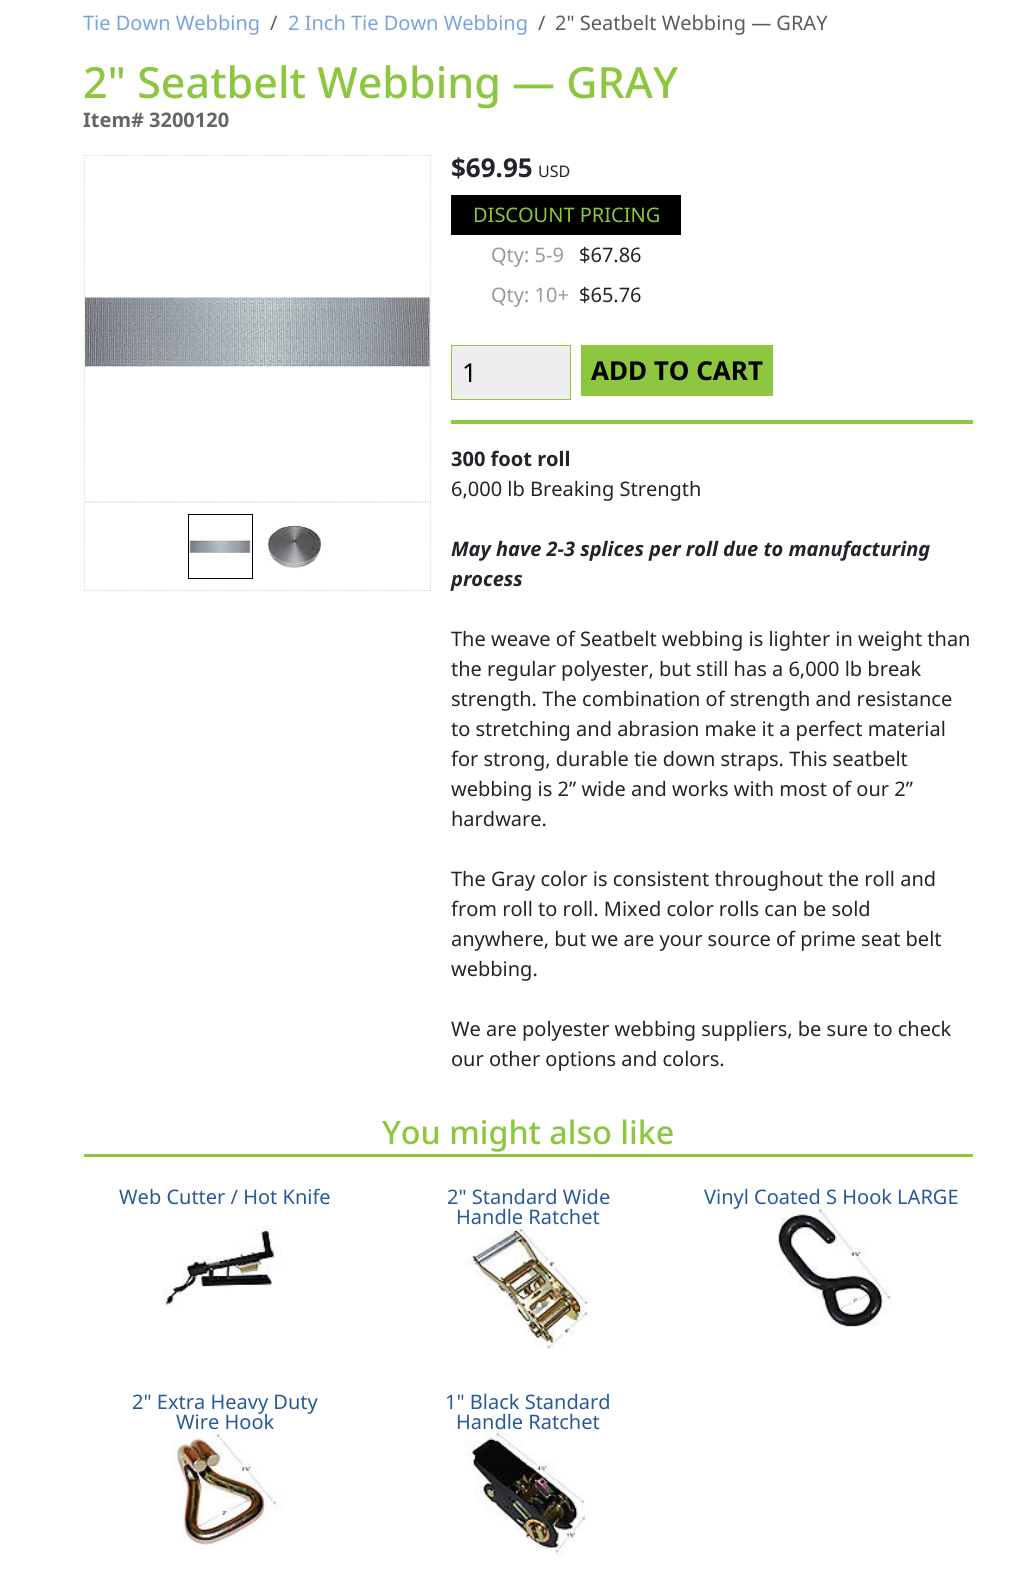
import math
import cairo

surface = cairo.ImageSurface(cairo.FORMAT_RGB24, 1036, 1590)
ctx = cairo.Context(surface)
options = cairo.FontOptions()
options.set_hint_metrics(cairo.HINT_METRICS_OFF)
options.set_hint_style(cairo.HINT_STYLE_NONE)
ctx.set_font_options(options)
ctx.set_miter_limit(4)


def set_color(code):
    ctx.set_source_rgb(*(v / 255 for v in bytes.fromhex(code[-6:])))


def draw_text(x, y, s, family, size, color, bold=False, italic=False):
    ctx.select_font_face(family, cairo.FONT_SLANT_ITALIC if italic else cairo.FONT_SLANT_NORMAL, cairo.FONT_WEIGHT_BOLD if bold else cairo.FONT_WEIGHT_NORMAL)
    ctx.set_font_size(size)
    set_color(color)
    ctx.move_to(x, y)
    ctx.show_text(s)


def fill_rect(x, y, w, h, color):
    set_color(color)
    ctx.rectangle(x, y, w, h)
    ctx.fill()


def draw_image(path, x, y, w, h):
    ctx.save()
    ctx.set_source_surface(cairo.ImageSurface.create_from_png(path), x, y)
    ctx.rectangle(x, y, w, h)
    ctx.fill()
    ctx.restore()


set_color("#ffffff")
ctx.paint()
draw_text(83, 30, "Tie Down Webbing", "Noto Sans", 20, "#7aa3dd")
draw_text(270, 30, "/", "Noto Sans", 20, "#595c5f")
draw_text(288, 30, "2 Inch Tie Down Webbing", "Noto Sans", 20, "#7aa3dd")
draw_text(538, 30, "/", "Noto Sans", 20, "#595c5f")
draw_text(555, 30, "2\" Seatbelt Webbing — GRAY", "Noto Sans", 20, "#595c5f")
draw_text(83, 98, "2\" Seatbelt Webbing — GRAY", "Noto Sans Medium", 43, "#8dc63f")
draw_text(83, 127, "Item# 3200120", "Noto Sans", 20, "#666666", bold=True)
ctx.new_path()
ctx.move_to(84, 155.5)
ctx.line_to(431, 155.5)
set_color("#dddddd")
ctx.set_line_width(1.2)
ctx.set_dash([1.25, 1.25])
ctx.stroke()
ctx.new_path()
ctx.move_to(430.5, 155)
ctx.line_to(430.5, 591)
ctx.stroke()
ctx.new_path()
ctx.move_to(84, 590.5)
ctx.line_to(431, 590.5)
ctx.stroke()
ctx.new_path()
ctx.move_to(84.5, 155)
ctx.line_to(84.5, 591)
ctx.stroke()
draw_image("assets/img1.png", 85, 297, 345, 70)
ctx.set_source_rgba(1, 1, 1, 0.25)
ctx.rectangle(429, 297, 1, 70)
ctx.fill()
ctx.new_path()
ctx.move_to(85, 502)
ctx.line_to(430, 502)
set_color("#cccccc")
ctx.stroke()
ctx.rectangle(188.5, 514.5, 64, 64)
set_color("#000000")
ctx.set_line_width(1)
ctx.set_dash([])
ctx.stroke()
draw_image("assets/img2.png", 189, 540, 62, 13)
draw_image("assets/img3.png", 267, 525, 54, 44)
fill_rect(451, 420, 522, 4, "#8dc63f")
draw_text(451, 177, "$69.95", "Noto Sans", 26, "#212529", bold=True)
draw_text(538, 177, "USD", "Noto Sans", 16, "#212529")
fill_rect(451, 195, 230, 40, "#000000")
draw_text(473, 222, "DISCOUNT PRICING", "Noto Sans", 20, "#8dc63f")
draw_text(491, 262, "Qty: 5-9", "Noto Sans", 20, "#999999")
draw_text(579, 262, "$67.86", "Noto Sans", 20, "#212529")
draw_text(491, 302, "Qty: 10+", "Noto Sans", 20, "#999999")
draw_text(579, 302, "$65.76", "Noto Sans", 20, "#212529")
set_color("#eeeeee")
ctx.rectangle(451.5, 345.5, 119, 54)
ctx.fill_preserve()
set_color("#8dc63f")
ctx.stroke()
draw_text(462, 382, "1", "Noto Sans", 26, "#000000")
fill_rect(581, 345, 192, 51, "#8dc63f")
draw_text(591, 380, "ADD TO CART", "Noto Sans", 26, "#000000", bold=True)
draw_text(451, 466, "300 foot roll", "Noto Sans", 20, "#212529", bold=True)
draw_text(451, 496, "6,000 lb Breaking Strength", "Noto Sans", 20, "#212529")
draw_text(451, 556, "May have 2-3 splices per roll due to manufacturing", "Noto Sans", 20, "#212529", bold=True, italic=True)
draw_text(451, 586, "process", "Noto Sans", 20, "#212529", bold=True, italic=True)
draw_text(451, 646, "The weave of Seatbelt webbing is lighter in weight than", "Noto Sans", 20, "#212529")
draw_text(451, 676, "the regular polyester, but still has a 6,000 lb break", "Noto Sans", 20, "#212529")
draw_text(451, 706, "strength. The combination of strength and resistance", "Noto Sans", 20, "#212529")
draw_text(451, 736, "to stretching and abrasion make it a perfect material", "Noto Sans", 20, "#212529")
draw_text(451, 766, "for strong, durable tie down straps. This seatbelt", "Noto Sans", 20, "#212529")
draw_text(451, 796, "webbing is 2” wide and works with most of our 2”", "Noto Sans", 20, "#212529")
draw_text(451, 826, "hardware.", "Noto Sans", 20, "#212529")
draw_text(451, 886, "The Gray color is consistent throughout the roll and", "Noto Sans", 20, "#212529")
draw_text(451, 916, "from roll to roll. Mixed color rolls can be sold", "Noto Sans", 20, "#212529")
draw_text(451, 946, "anywhere, but we are your source of prime seat belt", "Noto Sans", 20, "#212529")
draw_text(451, 976, "webbing.", "Noto Sans", 20, "#212529")
draw_text(451, 1036, "We are polyester webbing suppliers, be sure to check", "Noto Sans", 20, "#212529")
draw_text(451, 1066, "our other options and colors.", "Noto Sans", 20, "#212529")
fill_rect(84, 1154, 889, 3, "#8dc63f")
draw_text(382, 1144, "You might also like", "Noto Sans Medium", 32.25, "#8dc63f")
draw_text(119, 1204, "Web Cutter / Hot Knife", "Noto Sans", 20, "#285998")
draw_image("assets/img4.png", 162, 1226, 121, 80)
draw_text(447, 1204, "2\" Standard Wide", "Noto Sans", 20, "#285998")
draw_text(456, 1224, "Handle Ratchet", "Noto Sans", 20, "#285998")
draw_image("assets/img5.png", 465, 1226, 125, 125)
draw_text(704, 1204, "Vinyl Coated S Hook LARGE", "Noto Sans", 20, "#285998")
draw_image("assets/img6.png", 778, 1206, 116, 121)
draw_text(132, 1409, "2\" Extra Heavy Duty", "Noto Sans", 20, "#285998")
draw_text(176, 1429, "Wire Hook", "Noto Sans", 20, "#285998")
draw_image("assets/img7.png", 172, 1431, 111, 120)
draw_text(445, 1409, "1\" Black Standard", "Noto Sans", 20, "#285998")
draw_text(456, 1429, "Handle Ratchet", "Noto Sans", 20, "#285998")
draw_image("assets/img8.png", 465, 1431, 121, 125)
surface.write_to_png("output.png")
